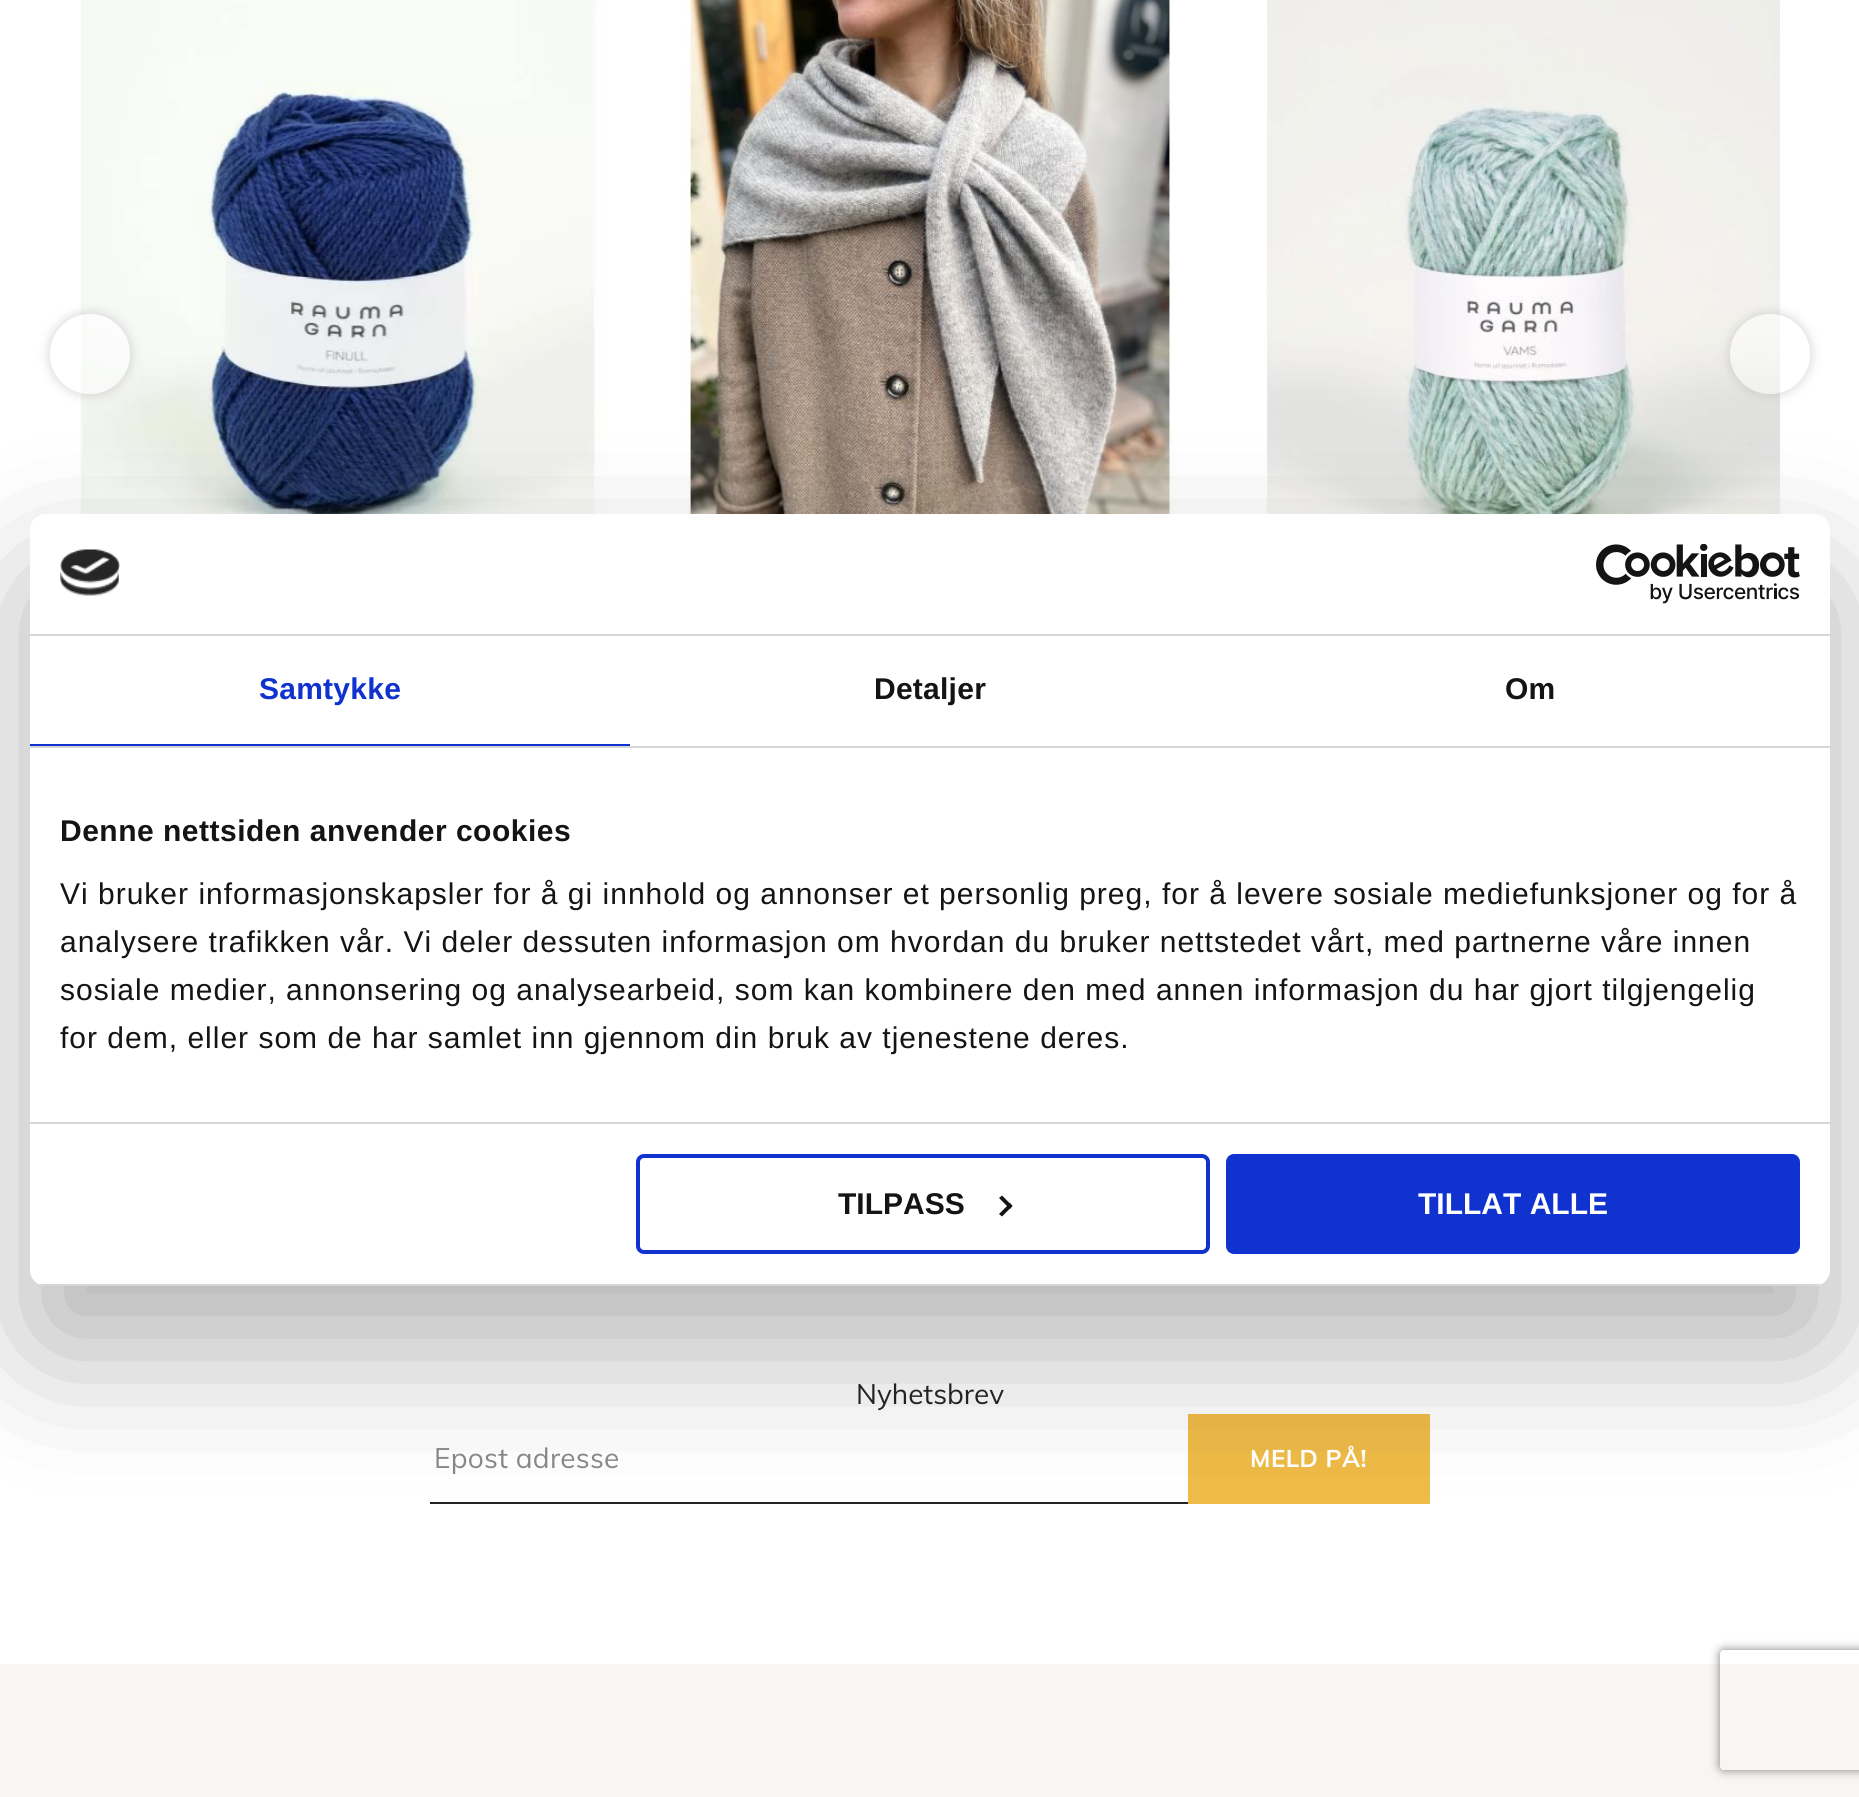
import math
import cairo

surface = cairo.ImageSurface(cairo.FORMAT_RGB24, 1859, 1797)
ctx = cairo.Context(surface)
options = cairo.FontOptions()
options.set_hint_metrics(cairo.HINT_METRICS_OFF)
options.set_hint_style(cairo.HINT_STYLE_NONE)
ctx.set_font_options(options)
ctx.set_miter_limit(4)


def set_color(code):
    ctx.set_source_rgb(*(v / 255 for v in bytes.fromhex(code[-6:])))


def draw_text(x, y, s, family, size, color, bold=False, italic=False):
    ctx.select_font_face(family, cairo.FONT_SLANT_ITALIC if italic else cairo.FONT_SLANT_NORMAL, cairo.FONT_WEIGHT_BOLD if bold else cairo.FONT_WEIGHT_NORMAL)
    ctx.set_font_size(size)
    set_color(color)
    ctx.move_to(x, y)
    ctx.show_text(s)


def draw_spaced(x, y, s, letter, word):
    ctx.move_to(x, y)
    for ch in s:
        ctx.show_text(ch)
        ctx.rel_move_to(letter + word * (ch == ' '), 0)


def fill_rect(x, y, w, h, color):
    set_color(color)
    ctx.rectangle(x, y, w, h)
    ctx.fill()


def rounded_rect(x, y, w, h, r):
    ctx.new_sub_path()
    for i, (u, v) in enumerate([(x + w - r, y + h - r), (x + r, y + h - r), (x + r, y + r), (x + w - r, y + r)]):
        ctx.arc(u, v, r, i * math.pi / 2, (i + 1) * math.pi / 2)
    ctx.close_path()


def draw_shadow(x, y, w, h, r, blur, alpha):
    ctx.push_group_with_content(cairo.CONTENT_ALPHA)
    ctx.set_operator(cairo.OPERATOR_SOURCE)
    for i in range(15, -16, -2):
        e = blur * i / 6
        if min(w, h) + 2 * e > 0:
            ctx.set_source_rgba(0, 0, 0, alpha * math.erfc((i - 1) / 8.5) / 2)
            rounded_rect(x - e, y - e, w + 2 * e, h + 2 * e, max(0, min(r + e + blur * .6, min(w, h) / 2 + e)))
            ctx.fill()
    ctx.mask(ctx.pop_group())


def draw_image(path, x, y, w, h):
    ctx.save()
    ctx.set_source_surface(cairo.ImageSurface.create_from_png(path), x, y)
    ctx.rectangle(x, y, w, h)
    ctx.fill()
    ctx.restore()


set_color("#ffffff")
ctx.paint()
draw_image("assets/img3.png", 80, 0, 523, 514)
draw_image("assets/img4.png", 682, 0, 492, 514)
draw_image("assets/img5.png", 1265, 0, 516, 514)
ctx.save()
ctx.set_fill_rule(cairo.FILL_RULE_EVEN_ODD)
ctx.new_path()
ctx.move_to(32, 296)
ctx.line_to(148, 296)
ctx.line_to(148, 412)
ctx.line_to(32, 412)
ctx.close_path()
ctx.move_to(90, 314)
ctx.curve_to(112, 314, 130, 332, 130, 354)
ctx.curve_to(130, 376, 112, 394, 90, 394)
ctx.curve_to(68, 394, 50, 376, 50, 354)
ctx.curve_to(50, 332, 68, 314, 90, 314)
ctx.close_path()
ctx.clip()
set_color("#bbbbbb")
draw_shadow(48, 312, 84, 84, 42, 5, 0.5)
ctx.restore()
ctx.set_source_rgba(1, 1, 1, 0.5)
ctx.arc(90, 354, 40, 0, 2 * math.pi)
ctx.fill()
ctx.save()
ctx.set_fill_rule(cairo.FILL_RULE_EVEN_ODD)
ctx.new_path()
ctx.move_to(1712, 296)
ctx.line_to(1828, 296)
ctx.line_to(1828, 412)
ctx.line_to(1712, 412)
ctx.close_path()
ctx.move_to(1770, 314)
ctx.curve_to(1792, 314, 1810, 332, 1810, 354)
ctx.curve_to(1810, 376, 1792, 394, 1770, 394)
ctx.curve_to(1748, 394, 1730, 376, 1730, 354)
ctx.curve_to(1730, 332, 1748, 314, 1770, 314)
ctx.close_path()
ctx.clip()
set_color("#bbbbbb")
draw_shadow(1728, 312, 84, 84, 42, 5, 0.5)
ctx.restore()
ctx.arc(1770, 354, 40, 0, 2 * math.pi)
ctx.fill()
fill_rect(430, 1502, 758, 2, "#232323")
fill_rect(1188, 1414, 242, 90, "#efbb48")
set_color("#000000")
draw_shadow(30, 578, 1800, 772, 16, 68, 0.3)
set_color("#ffffff")
rounded_rect(30, 514, 1800, 772, 16)
ctx.fill()
fill_rect(30, 634, 1800, 2, "#d6d6d6")
draw_image("assets/img1.png", 60, 549, 60, 47)
draw_image("assets/img2.png", 1596, 544, 204, 60)
fill_rect(30, 746, 1800, 2, "#d6d6d6")
fill_rect(30, 744, 600, 2, "#1032cf")
ctx.select_font_face("Liberation Sans", cairo.FONT_SLANT_NORMAL, cairo.FONT_WEIGHT_BOLD)
ctx.set_font_size(30)
draw_spaced(259, 699, "Samtykke", 0.25, 0)
set_color("#141414")
draw_spaced(874, 699, "Detaljer", 0.25, 0)
draw_spaced(1505, 699, "Om", 0.25, 0)
fill_rect(30, 1122, 1800, 2, "#d6d6d6")
set_color("#141414")
draw_spaced(60, 841, "Denne nettsiden anvender cookies", 0.5, 0)
ctx.select_font_face("Liberation Sans")
draw_spaced(60, 904, "Vi bruker informasjonskapsler for å gi innhold og annonser et personlig preg, for å levere sosiale mediefunksjoner og for å", 1, 0)
draw_spaced(60, 952, "analysere trafikken vår. Vi deler dessuten informasjon om hvordan du bruker nettstedet vårt, med partnerne våre innen", 1, 0)
draw_spaced(60, 1000, "sosiale medier, annonsering og analysearbeid, som kan kombinere den med annen informasjon du har gjort tilgjengelig", 1, 0)
draw_spaced(60, 1048, "for dem, eller som de har samlet inn gjennom din bruk av tjenestene deres.", 1, 0)
ctx.save()
rounded_rect(30, 514, 1800, 772, 16)
ctx.clip()
fill_rect(30, 1284, 1800, 2, "#d6d6d6")
ctx.restore()
rounded_rect(638, 1156, 570, 96, 6)
set_color("#1032cf")
ctx.set_line_width(4)
ctx.stroke()
draw_text(838, 1214, "TILPASS", "Liberation Sans", 30, "#141414", bold=True)
ctx.new_path()
ctx.move_to(1002, 1195.5)
ctx.line_to(1012.5, 1206)
ctx.line_to(1010, 1209)
ctx.line_to(999, 1198)
ctx.close_path()
ctx.fill()
ctx.new_path()
ctx.move_to(1010, 1203)
ctx.line_to(1012.5, 1206)
ctx.line_to(1002, 1216.5)
ctx.line_to(999, 1214)
ctx.close_path()
ctx.fill()
set_color("#1032cf")
rounded_rect(1228, 1156, 570, 96, 6)
ctx.fill_preserve()
ctx.stroke()
draw_text(1418, 1214, "TILLAT ALLE", "Liberation Sans", 30, "#ffffff", bold=True)
draw_text(856, 1404, "Nyhetsbrev", "Muli", 28, "#232323")
set_color("#878787")
draw_spaced(434, 1468, "Epost adresse", 0.25, 0)
ctx.select_font_face("Muli", cairo.FONT_SLANT_NORMAL, cairo.FONT_WEIGHT_BOLD)
ctx.set_font_size(24)
set_color("#ffffff")
draw_spaced(1250, 1467, "MELD PÅ!", 0.5, 0)
fill_rect(0, 1664, 1859, 133, "#f8f6f2")
ctx.save()
ctx.set_fill_rule(cairo.FILL_RULE_EVEN_ODD)
ctx.new_path()
ctx.move_to(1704, 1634)
ctx.line_to(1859, 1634)
ctx.line_to(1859, 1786)
ctx.line_to(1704, 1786)
ctx.close_path()
ctx.move_to(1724, 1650)
ctx.line_to(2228, 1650)
ctx.curve_to(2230, 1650, 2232, 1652, 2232, 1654)
ctx.line_to(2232, 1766)
ctx.curve_to(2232, 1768, 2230, 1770, 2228, 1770)
ctx.line_to(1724, 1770)
ctx.curve_to(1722, 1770, 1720, 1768, 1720, 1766)
ctx.line_to(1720, 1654)
ctx.curve_to(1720, 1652, 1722, 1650, 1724, 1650)
ctx.close_path()
ctx.clip()
set_color("#808080")
draw_shadow(1720, 1650, 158, 120, 4, 5, 1)
ctx.restore()
surface.write_to_png("output.png")
